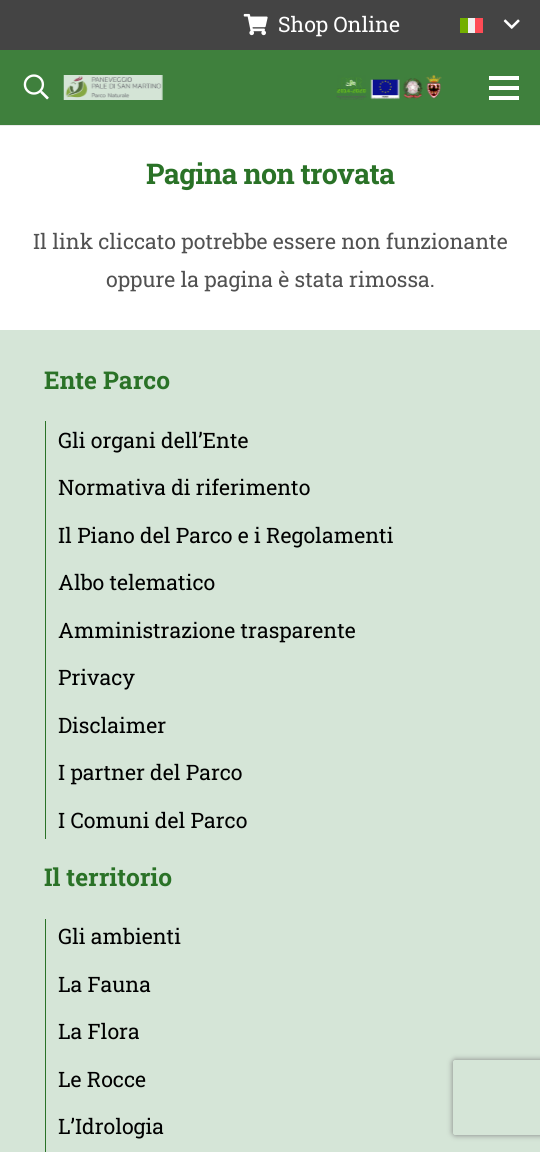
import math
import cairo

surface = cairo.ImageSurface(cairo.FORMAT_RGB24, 540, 1152)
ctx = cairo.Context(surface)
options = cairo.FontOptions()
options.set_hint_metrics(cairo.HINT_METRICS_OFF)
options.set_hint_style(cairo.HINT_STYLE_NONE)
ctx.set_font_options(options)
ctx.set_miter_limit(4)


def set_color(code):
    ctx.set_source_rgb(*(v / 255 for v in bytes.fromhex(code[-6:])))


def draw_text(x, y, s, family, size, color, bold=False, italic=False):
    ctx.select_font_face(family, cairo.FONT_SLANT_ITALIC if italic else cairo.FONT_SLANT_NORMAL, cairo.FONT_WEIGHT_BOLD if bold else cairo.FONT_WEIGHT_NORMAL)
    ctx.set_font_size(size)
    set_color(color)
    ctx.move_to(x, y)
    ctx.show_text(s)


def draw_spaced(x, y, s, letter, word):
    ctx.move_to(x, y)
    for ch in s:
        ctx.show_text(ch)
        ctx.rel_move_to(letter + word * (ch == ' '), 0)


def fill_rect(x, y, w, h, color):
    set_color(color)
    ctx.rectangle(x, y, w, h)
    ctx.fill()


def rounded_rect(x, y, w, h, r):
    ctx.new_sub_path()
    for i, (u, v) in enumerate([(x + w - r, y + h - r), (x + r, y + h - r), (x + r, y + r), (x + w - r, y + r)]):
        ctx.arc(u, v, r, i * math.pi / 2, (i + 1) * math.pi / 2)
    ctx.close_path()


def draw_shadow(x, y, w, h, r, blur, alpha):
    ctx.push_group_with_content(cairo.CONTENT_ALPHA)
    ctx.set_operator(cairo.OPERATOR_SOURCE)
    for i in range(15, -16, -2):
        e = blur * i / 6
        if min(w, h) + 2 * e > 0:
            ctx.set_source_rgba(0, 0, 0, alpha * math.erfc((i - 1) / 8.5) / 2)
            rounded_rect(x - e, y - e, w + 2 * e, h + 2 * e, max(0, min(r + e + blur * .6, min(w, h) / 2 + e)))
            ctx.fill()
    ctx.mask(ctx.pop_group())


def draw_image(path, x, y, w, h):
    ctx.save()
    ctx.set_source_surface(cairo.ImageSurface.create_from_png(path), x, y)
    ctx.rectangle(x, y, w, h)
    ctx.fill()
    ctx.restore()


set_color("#ffffff")
ctx.paint()
fill_rect(0, 0, 540, 50, "#444444")
draw_image("assets/img1.png", 243, 13, 25, 23)
draw_text(278, 32, "Shop Online", "Roboto Slab", 21.25, "#ffffff")
fill_rect(468, 18, 7, 15, "#f0f0f0")
fill_rect(475, 18, 8, 15, "#ff4b55")
fill_rect(460, 18, 8, 15, "#73af00")
draw_image("assets/img2.png", 503, 19, 17, 10)
fill_rect(0, 125, 540, 1, "#ebebeb")
fill_rect(0, 50, 540, 75, "#3f803d")
draw_image("assets/img3.png", 23, 74, 26, 26)
draw_image("assets/img4.png", 63, 75, 100, 25)
draw_image("assets/img5.png", 336, 75, 106, 25)
fill_rect(489, 86, 30, 4, "#ffffff")
fill_rect(489, 76, 30, 4, "#ffffff")
fill_rect(489, 96, 30, 4, "#ffffff")
ctx.select_font_face("Roboto Slab", cairo.FONT_SLANT_NORMAL, cairo.FONT_WEIGHT_BOLD)
ctx.set_font_size(28.5)
set_color("#2a7227")
draw_spaced(146, 184, "Pagina non trovata", -0.6, 0)
draw_text(33, 249, "Il link cliccato potrebbe essere non funzionante", "Roboto Slab", 21.25, "#515151")
draw_text(106, 287, "oppure la pagina è stata rimossa.", "Roboto Slab", 21.25, "#515151")
fill_rect(0, 330, 540, 822, "#d5e5d7")
draw_text(44, 389, "Ente Parco", "Roboto Slab", 24.5, "#2a7227", bold=True)
fill_rect(45, 421, 1, 418, "#2a7227")
draw_text(58, 448, "Gli organi dell’Ente", "Roboto Slab", 21.25, "#000000")
draw_text(58, 495, "Normativa di riferimento", "Roboto Slab", 21.25, "#000000")
draw_text(58, 543, "Il Piano del Parco e i Regolamenti", "Roboto Slab", 21.25, "#000000")
draw_text(58, 590, "Albo telematico", "Roboto Slab", 21.25, "#000000")
draw_text(58, 638, "Amministrazione trasparente", "Roboto Slab", 21.25, "#000000")
draw_text(58, 685, "Privacy", "Roboto Slab", 21.25, "#000000")
draw_text(58, 733, "Disclaimer", "Roboto Slab", 21.25, "#000000")
draw_text(58, 780, "I partner del Parco", "Roboto Slab", 21.25, "#000000")
draw_text(58, 828, "I Comuni del Parco", "Roboto Slab", 21.25, "#000000")
draw_text(44, 886, "Il territorio", "Roboto Slab", 24.5, "#2a7227", bold=True)
fill_rect(45, 919, 1, 233, "#2a7227")
draw_text(58, 944, "Gli ambienti", "Roboto Slab", 21.25, "#000000")
draw_text(58, 992, "La Fauna", "Roboto Slab", 21.25, "#000000")
draw_text(58, 1039, "La Flora", "Roboto Slab", 21.25, "#000000")
draw_text(58, 1087, "Le Rocce", "Roboto Slab", 21.25, "#000000")
draw_text(58, 1134, "L’Idrologia", "Roboto Slab", 21.25, "#000000")
ctx.save()
ctx.set_fill_rule(cairo.FILL_RULE_EVEN_ODD)
ctx.new_path()
ctx.move_to(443, 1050)
ctx.line_to(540, 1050)
ctx.line_to(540, 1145)
ctx.line_to(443, 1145)
ctx.close_path()
ctx.move_to(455.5, 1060)
ctx.line_to(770.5, 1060)
ctx.curve_to(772, 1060, 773, 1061, 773, 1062.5)
ctx.line_to(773, 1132.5)
ctx.curve_to(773, 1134, 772, 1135, 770.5, 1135)
ctx.line_to(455.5, 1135)
ctx.curve_to(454, 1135, 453, 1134, 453, 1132.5)
ctx.line_to(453, 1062.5)
ctx.curve_to(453, 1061, 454, 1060, 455.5, 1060)
ctx.close_path()
ctx.clip()
set_color("#808080")
draw_shadow(453, 1060, 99, 75, 2.5, 3, 1)
ctx.restore()
surface.write_to_png("output.png")
